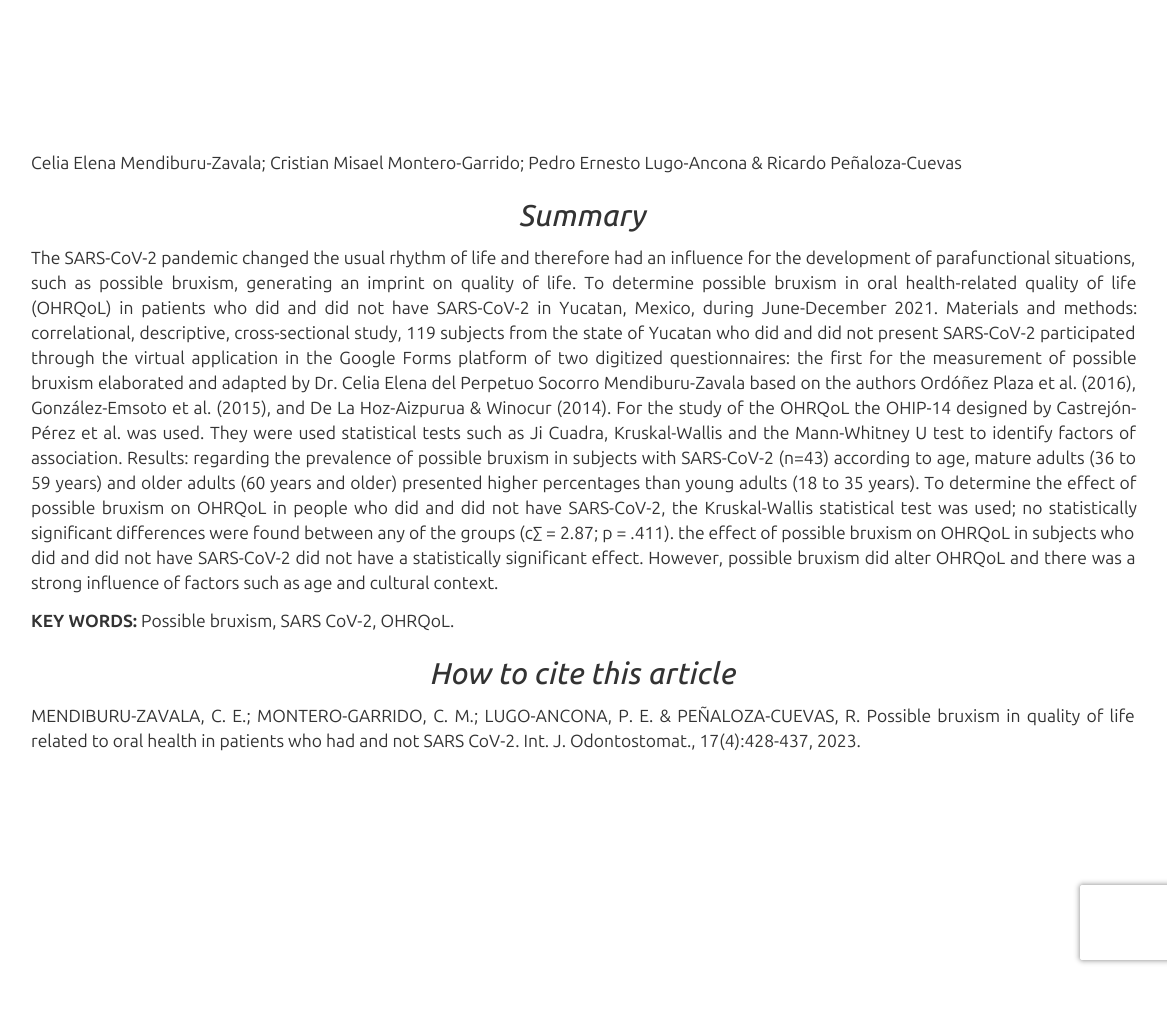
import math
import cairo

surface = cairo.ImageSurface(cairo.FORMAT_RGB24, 1167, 1022)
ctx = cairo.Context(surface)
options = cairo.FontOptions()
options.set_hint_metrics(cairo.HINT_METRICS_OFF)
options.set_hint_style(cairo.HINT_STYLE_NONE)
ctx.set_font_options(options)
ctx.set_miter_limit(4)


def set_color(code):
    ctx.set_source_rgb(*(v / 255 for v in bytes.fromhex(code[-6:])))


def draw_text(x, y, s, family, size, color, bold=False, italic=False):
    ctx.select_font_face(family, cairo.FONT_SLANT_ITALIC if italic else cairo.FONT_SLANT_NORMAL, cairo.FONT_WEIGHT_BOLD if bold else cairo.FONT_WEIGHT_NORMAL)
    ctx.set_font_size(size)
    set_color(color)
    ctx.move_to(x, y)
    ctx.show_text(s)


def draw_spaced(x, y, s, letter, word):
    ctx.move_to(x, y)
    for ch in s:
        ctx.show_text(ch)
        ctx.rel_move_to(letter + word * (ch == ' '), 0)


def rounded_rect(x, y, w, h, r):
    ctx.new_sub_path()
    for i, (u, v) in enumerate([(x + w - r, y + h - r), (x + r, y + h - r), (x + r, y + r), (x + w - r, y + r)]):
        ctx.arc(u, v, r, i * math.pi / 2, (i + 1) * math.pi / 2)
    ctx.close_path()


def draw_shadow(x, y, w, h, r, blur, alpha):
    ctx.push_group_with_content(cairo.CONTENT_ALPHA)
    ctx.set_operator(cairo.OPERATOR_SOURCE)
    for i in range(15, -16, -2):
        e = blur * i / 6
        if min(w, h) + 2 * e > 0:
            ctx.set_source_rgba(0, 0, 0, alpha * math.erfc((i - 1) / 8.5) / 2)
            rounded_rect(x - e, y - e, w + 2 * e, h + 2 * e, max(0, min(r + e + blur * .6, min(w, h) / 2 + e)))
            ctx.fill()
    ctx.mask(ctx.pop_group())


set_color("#ffffff")
ctx.paint()
draw_text(31, 169, "Celia Elena Mendiburu-Zavala; Cristian Misael Montero-Garrido; Pedro Ernesto Lugo-Ancona & Ricardo Peñaloza-Cuevas", "Ubuntu", 17.5, "#333333")
draw_text(520, 226, "Summary", "Ubuntu Medium", 30, "#333333", italic=True)
ctx.select_font_face("Ubuntu")
ctx.set_font_size(17.5)
draw_spaced(31, 264, "The SARS-CoV-2 pandemic changed the usual rhythm of life and therefore had an influence for the development of parafunctional situations,", 0, 0.1)
draw_spaced(31, 289, "such as possible bruxism, generating an imprint on quality of life. To determine possible bruxism in oral health-related quality of life", 0, 3.9)
draw_spaced(31, 314, "(OHRQoL) in patients who did and did not have SARS-CoV-2 in Yucatan, Mexico, during June-December 2021. Materials and methods:", 0, 3.75)
draw_spaced(31, 339, "correlational, descriptive, cross-sectional study, 119 subjects from the state of Yucatan who did and did not present SARS-CoV-2 participated", 0, 0.4)
draw_spaced(31, 364, "through the virtual application in the Google Forms platform of two digitized questionnaires: the first for the measurement of possible", 0, 2.75)
draw_spaced(31, 389, "bruxism elaborated and adapted by Dr. Celia Elena del Perpetuo Socorro Mendiburu-Zavala based on the authors Ordóñez Plaza et al. (2016),", 0, 0.25)
draw_spaced(31, 414, "González-Emsoto et al. (2015), and De La Hoz-Aizpurua & Winocur (2014). For the study of the OHRQoL the OHIP-14 designed by Castrejón-", 0, 0.9)
draw_spaced(31, 439, "Pérez et al. was used. They were used statistical tests such as Ji Cuadra, Kruskal-Wallis and the Mann-Whitney U test to identify factors of", 0, 1.6)
draw_spaced(31, 464, "association. Results: regarding the prevalence of possible bruxism in subjects with SARS-CoV-2 (n=43) according to age, mature adults (36 to", 0, 0.6)
draw_spaced(31, 489, "59 years) and older adults (60 years and older) presented higher percentages than young adults (18 to 35 years). To determine the effect of", 0, 0.75)
draw_spaced(31, 514, "possible bruxism on OHRQoL in people who did and did not have SARS-CoV-2, the Kruskal-Wallis statistical test was used; no statistically", 0, 2.25)
draw_text(31, 539, "significant differences were found between any of the groups (c∑ = 2.87; p = .411). the effect of possible bruxism on OHRQoL in subjects who", "Ubuntu", 17.5, "#333333")
draw_spaced(31, 564, "did and did not have SARS-CoV-2 did not have a statistically significant effect. However, possible bruxism did alter OHRQoL and there was a", 0, 0.8)
draw_text(31, 589, "strong influence of factors such as age and cultural context.", "Ubuntu", 17.5, "#333333")
draw_text(31, 627, "KEY WORDS:", "Ubuntu", 17.5, "#333333", bold=True)
draw_text(141, 627, "Possible bruxism, SARS CoV-2, OHRQoL.", "Ubuntu", 17.5, "#333333")
draw_text(431, 684, "How to cite this article", "Ubuntu Medium", 30, "#333333", italic=True)
ctx.select_font_face("Ubuntu")
ctx.set_font_size(17.5)
draw_spaced(31, 722, "MENDIBURU-ZAVALA, C. E.; MONTERO-GARRIDO, C. M.; LUGO-ANCONA, P. E. & PEÑALOZA-CUEVAS, R. Possible bruxism in quality of life", 0, 2.25)
draw_text(31, 747, "related to oral health in patients who had and not SARS CoV-2. Int. J. Odontostomat., 17(4):428-437, 2023.", "Ubuntu", 17.5, "#333333")
ctx.save()
ctx.set_fill_rule(cairo.FILL_RULE_EVEN_ODD)
ctx.new_path()
ctx.move_to(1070, 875)
ctx.line_to(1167, 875)
ctx.line_to(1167, 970)
ctx.line_to(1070, 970)
ctx.close_path()
ctx.move_to(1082.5, 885)
ctx.line_to(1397.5, 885)
ctx.curve_to(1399, 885, 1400, 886, 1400, 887.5)
ctx.line_to(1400, 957.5)
ctx.curve_to(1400, 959, 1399, 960, 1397.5, 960)
ctx.line_to(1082.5, 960)
ctx.curve_to(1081, 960, 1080, 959, 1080, 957.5)
ctx.line_to(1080, 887.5)
ctx.curve_to(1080, 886, 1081, 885, 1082.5, 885)
ctx.close_path()
ctx.clip()
set_color("#808080")
draw_shadow(1080, 885, 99, 75, 2.5, 3, 1)
ctx.restore()
surface.write_to_png("output.png")
